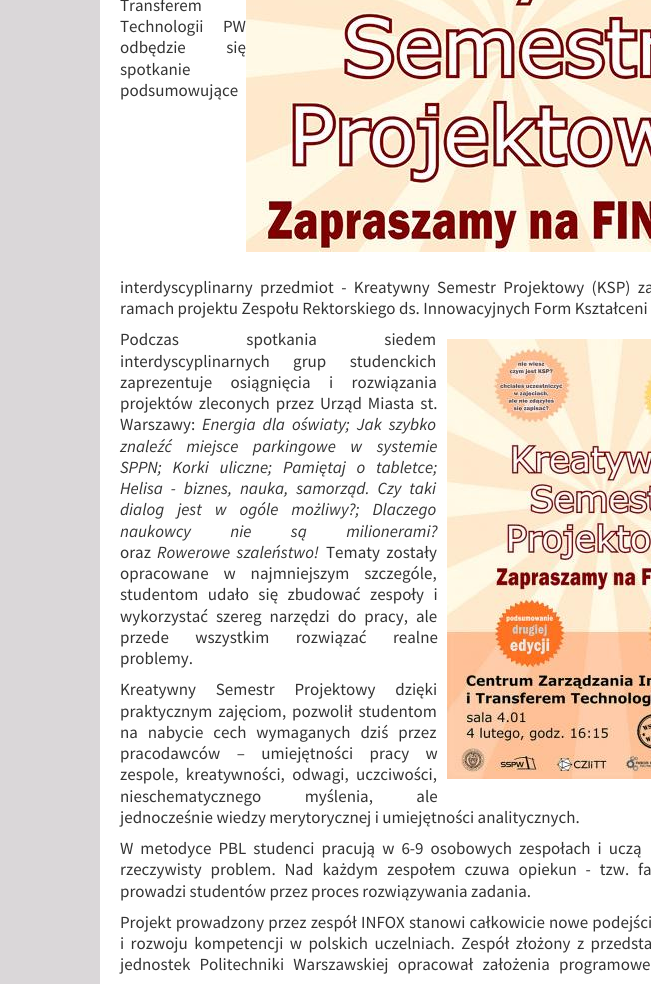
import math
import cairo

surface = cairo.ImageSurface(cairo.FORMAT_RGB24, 651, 984)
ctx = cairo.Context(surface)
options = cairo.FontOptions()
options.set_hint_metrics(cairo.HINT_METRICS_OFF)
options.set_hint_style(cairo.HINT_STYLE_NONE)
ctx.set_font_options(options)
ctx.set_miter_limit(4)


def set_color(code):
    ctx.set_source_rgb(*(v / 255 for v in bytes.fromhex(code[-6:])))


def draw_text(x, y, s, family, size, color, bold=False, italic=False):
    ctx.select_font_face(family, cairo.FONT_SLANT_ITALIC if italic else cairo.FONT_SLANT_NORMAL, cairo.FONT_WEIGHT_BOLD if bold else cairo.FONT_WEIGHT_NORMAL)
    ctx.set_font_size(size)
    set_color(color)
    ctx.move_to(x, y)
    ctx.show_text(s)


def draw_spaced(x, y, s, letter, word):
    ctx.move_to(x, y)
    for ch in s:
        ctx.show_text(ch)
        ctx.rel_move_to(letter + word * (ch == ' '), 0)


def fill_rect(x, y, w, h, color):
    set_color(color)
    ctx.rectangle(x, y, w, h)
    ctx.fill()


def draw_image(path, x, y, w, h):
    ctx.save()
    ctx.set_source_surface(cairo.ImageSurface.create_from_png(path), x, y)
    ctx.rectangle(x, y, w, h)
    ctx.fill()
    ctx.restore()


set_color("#dad7d9")
ctx.paint()
fill_rect(100, 0, 551, 984, "#ffffff")
draw_text(120, 11, "Transferem", "Source Sans Pro", 17, "#333333")
draw_spaced(120, 32, "Technologii PW", 0, 16)
draw_spaced(120, 53, "odbędzie się", 0, 37)
draw_text(120, 75, "spotkanie", "Source Sans Pro", 17, "#333333")
draw_text(120, 96, "podsumowujące", "Source Sans Pro", 17, "#333333")
draw_spaced(120, 293, "interdyscyplinarny przedmiot - Kreatywny Semestr Projektowy (KSP) za", 0, 4)
draw_text(120, 314, "ramach projektu Zespołu Rektorskiego ds. Innowacyjnych Form Kształceni", "Source Sans Pro", 17, "#333333")
draw_image("assets/img1.png", 246, 0, 405, 252)
draw_spaced(120, 345, "Podczas spotkania siedem", 0, 64)
draw_spaced(120, 367, "interdyscyplinarnych grup studenckich", 0, 20)
draw_spaced(120, 388, "zaprezentuje osiągnięcia i rozwiązania", 0, 15)
draw_spaced(120, 409, "projektów zleconych przez Urząd Miasta st.", 0, 2.5)
draw_text(120, 430, "Warszawy:", "Source Sans Pro", 17, "#333333")
ctx.select_font_face("Source Sans Pro", cairo.FONT_SLANT_ITALIC)
draw_spaced(202, 430, "Energia dla oświaty; Jak szybko", 0, 3.5)
draw_spaced(120, 452, "znaleźć miejsce parkingowe w systemie", 0, 11)
draw_spaced(120, 473, "SPPN; Korki uliczne; Pamiętaj o tabletce;", 0, 7.25)
draw_spaced(120, 494, "Helisa - biznes, nauka, samorząd. Czy taki", 0, 4.5)
draw_spaced(120, 515, "dialog jest w ogóle możliwy?; Dlaczego", 0, 9.5)
draw_spaced(120, 537, "naukowcy nie są milionerami?", 0, 36)
draw_text(120, 558, "oraz", "Source Sans Pro", 17, "#333333")
ctx.select_font_face("Source Sans Pro", cairo.FONT_SLANT_ITALIC)
draw_spaced(157, 558, "Rowerowe szaleństwo!", 0, 3)
ctx.select_font_face("Source Sans Pro")
draw_spaced(326, 558, "Tematy zostały", 0, 3)
draw_spaced(120, 579, "opracowane w najmniejszym szczególe,", 0, 11.5)
draw_spaced(120, 600, "studentom udało się zbudować zespoły i", 0, 6)
draw_spaced(120, 622, "wykorzystać szereg narzędzi do pracy, ale", 0, 4.5)
draw_spaced(120, 643, "przede wszystkim rozwiązać realne", 0, 23)
draw_text(120, 664, "problemy.", "Source Sans Pro", 17, "#333333")
draw_image("assets/img2.png", 447, 339, 204, 440)
draw_spaced(120, 695, "Kreatywny Semestr Projektowy dzięki", 0, 16.5)
draw_spaced(120, 717, "praktycznym zajęciom, pozwolił studentom", 0, 2.5)
draw_spaced(120, 738, "na nabycie cech wymaganych dziś przez", 0, 6.5)
draw_spaced(120, 759, "pracodawców – umiejętności pracy w", 0, 13)
draw_spaced(120, 780, "zespole, kreatywności, odwagi, uczciwości,", 0, 4)
draw_spaced(120, 802, "nieschematycznego myślenia, ale", 0, 40)
draw_text(120, 823, "jednocześnie wiedzy merytorycznej i umiejętności analitycznych.", "Source Sans Pro", 17, "#333333")
draw_spaced(120, 854, "W metodyce PBL studenci pracują w 6-9 osobowych zespołach i uczą", 0, 3.6)
draw_spaced(120, 875, "rzeczywisty problem. Nad każdym zespołem czuwa opiekun - tzw. fa", 0, 5.5)
draw_text(120, 897, "prowadzi studentów przez proces rozwiązywania zadania.", "Source Sans Pro", 17, "#333333")
draw_spaced(120, 928, "Projekt prowadzony przez zespół INFOX stanowi całkowicie nowe podejści", 0, 0.75)
draw_spaced(120, 949, "i rozwoju kompetencji w polskich uczelniach. Zespół złożony z przedsta", 0, 3)
draw_spaced(120, 970, "jednostek Politechniki Warszawskiej opracował założenia programowe", 0, 5.75)
surface.write_to_png("output.png")
